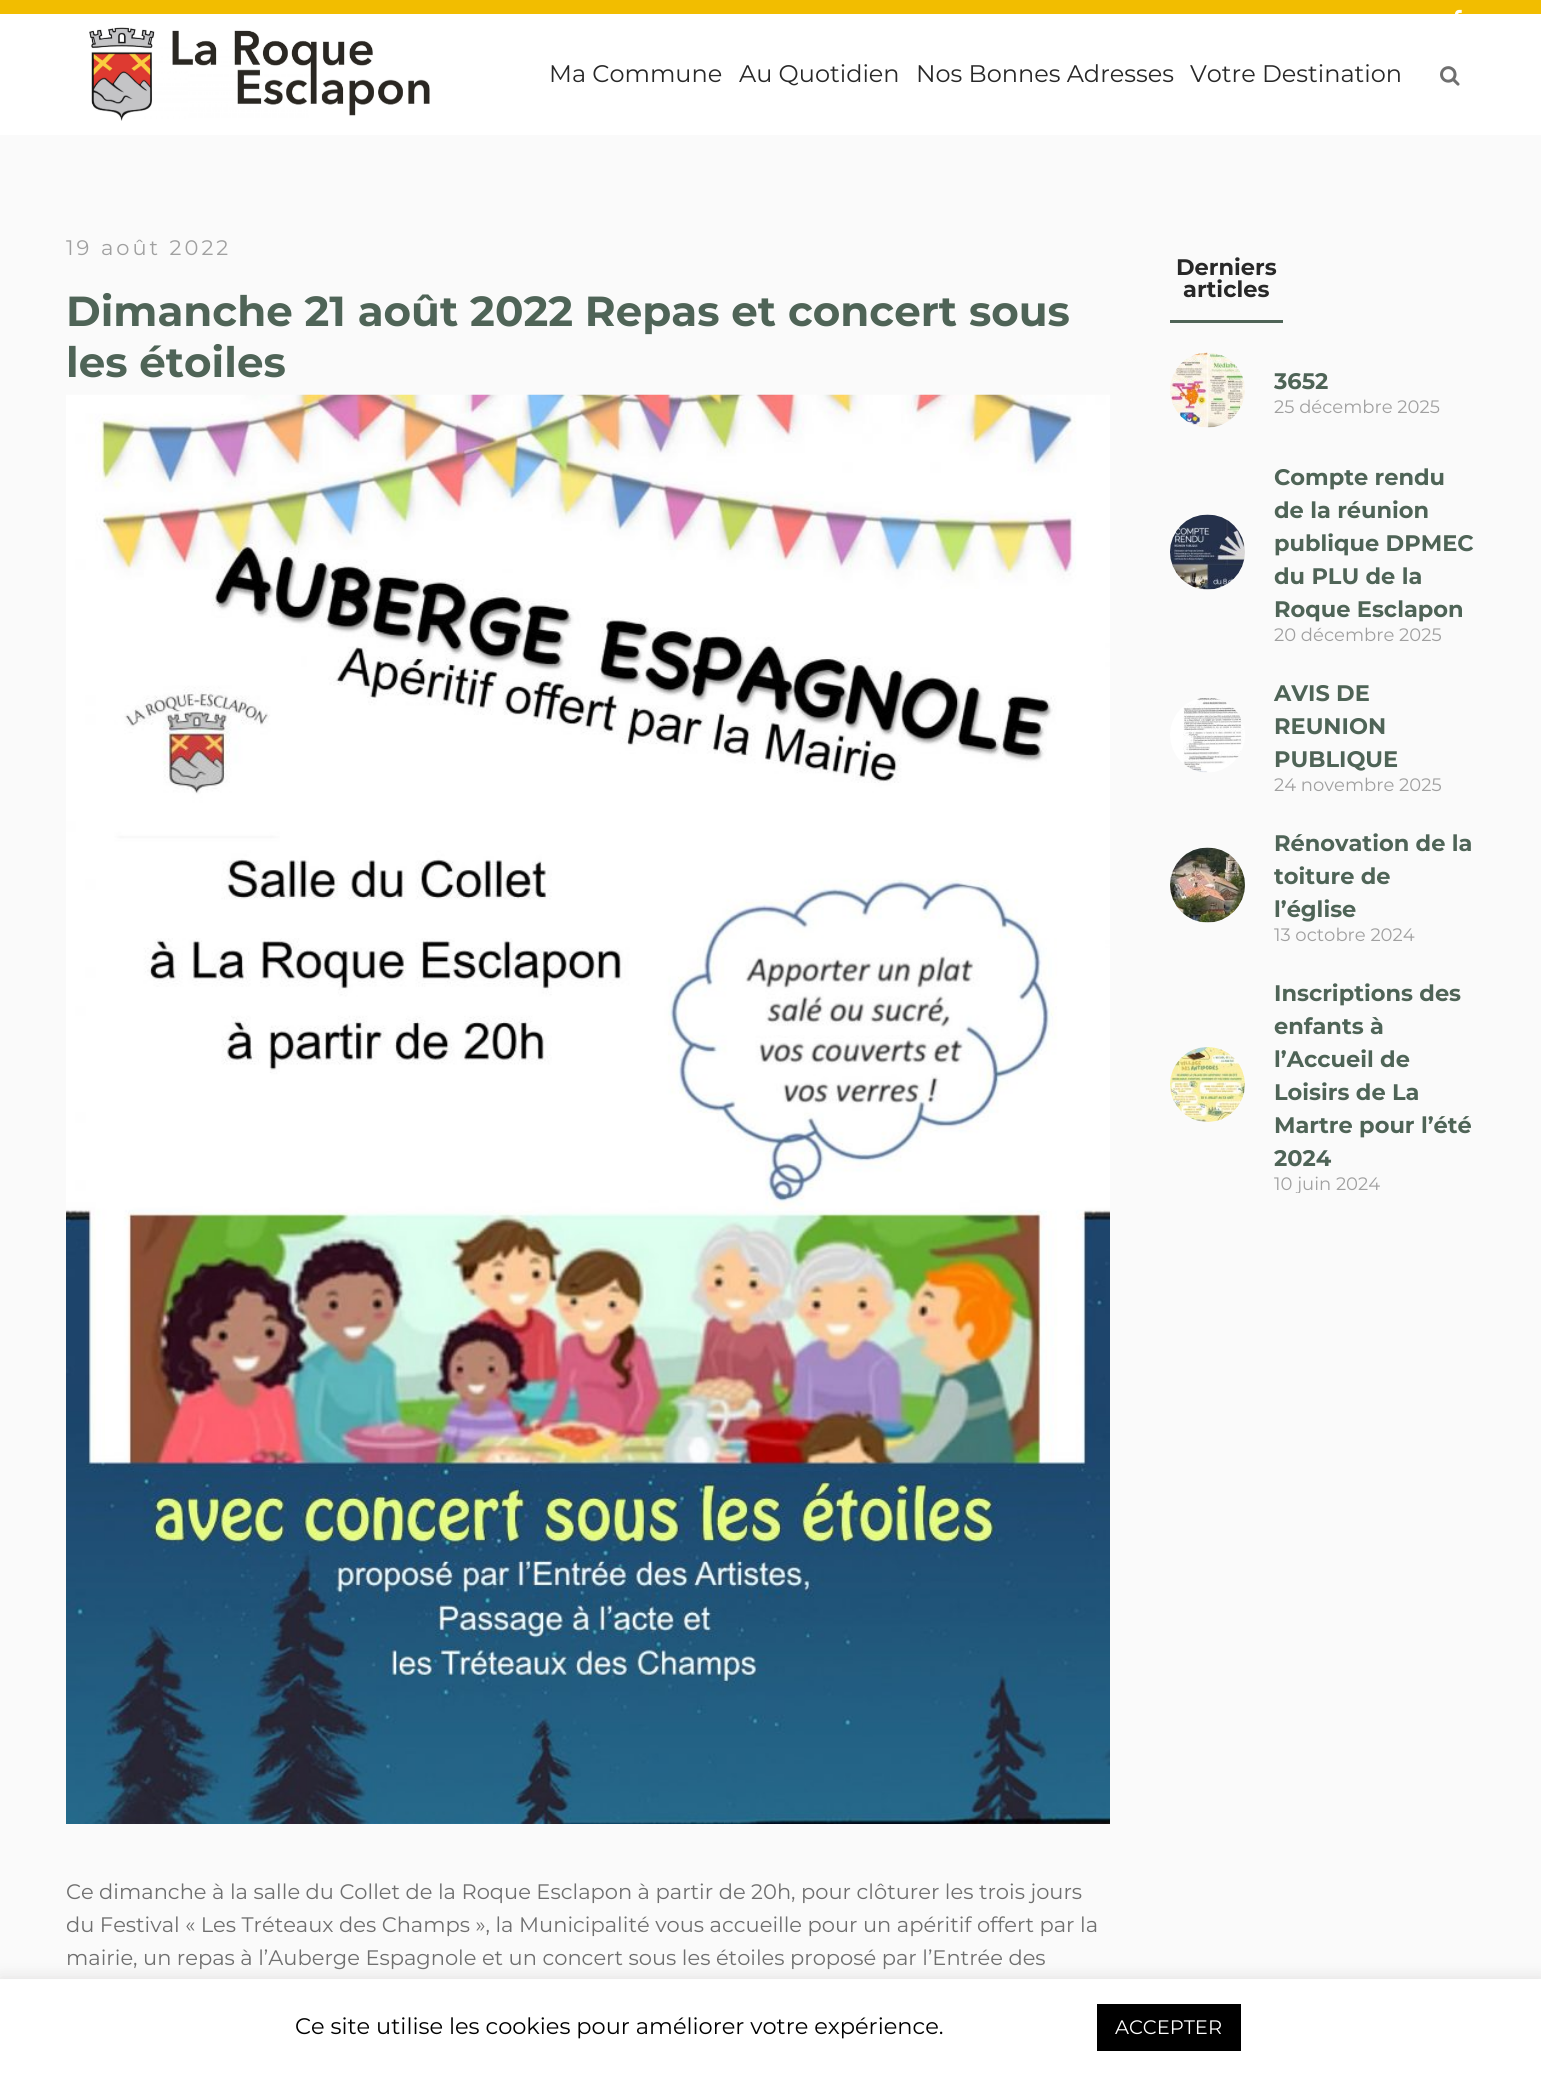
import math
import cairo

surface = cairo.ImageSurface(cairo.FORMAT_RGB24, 1541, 2075)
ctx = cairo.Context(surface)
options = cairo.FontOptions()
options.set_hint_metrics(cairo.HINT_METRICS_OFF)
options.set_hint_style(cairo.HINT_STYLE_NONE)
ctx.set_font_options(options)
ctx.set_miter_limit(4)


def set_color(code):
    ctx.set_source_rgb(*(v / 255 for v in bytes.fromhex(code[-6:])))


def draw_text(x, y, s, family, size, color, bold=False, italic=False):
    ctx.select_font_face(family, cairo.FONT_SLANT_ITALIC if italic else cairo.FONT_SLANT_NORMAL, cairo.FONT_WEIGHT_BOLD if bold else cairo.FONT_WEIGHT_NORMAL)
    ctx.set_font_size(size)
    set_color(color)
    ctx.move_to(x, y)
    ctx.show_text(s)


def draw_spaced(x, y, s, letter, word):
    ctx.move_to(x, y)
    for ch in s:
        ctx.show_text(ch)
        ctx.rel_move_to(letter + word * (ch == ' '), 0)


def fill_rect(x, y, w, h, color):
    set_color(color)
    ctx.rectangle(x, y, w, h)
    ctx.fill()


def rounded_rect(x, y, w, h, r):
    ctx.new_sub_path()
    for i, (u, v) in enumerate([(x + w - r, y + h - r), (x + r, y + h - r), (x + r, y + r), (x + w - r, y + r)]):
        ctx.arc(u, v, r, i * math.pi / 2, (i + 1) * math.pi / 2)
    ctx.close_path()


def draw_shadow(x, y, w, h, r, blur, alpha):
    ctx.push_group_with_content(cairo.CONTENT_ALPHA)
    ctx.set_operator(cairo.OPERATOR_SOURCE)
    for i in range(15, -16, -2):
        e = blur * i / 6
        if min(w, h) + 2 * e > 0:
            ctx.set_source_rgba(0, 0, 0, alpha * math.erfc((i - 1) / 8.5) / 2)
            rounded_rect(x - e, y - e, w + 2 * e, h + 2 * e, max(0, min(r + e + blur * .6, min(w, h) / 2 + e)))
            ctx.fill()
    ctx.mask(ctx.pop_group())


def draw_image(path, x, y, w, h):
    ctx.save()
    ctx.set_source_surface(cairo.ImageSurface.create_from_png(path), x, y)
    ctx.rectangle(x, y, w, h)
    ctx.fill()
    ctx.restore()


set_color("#fafafa")
ctx.paint()
fill_rect(0, 0, 1541, 14, "#f2bd00")
draw_image("assets/img1.png", 1455, 9, 7, 5)
fill_rect(0, 14, 1541, 121, "#ffffff")
draw_image("assets/img2.png", 89, 27, 341, 94)
draw_text(549, 82, "Ma Commune", "Montserrat", 24, "#282828")
draw_text(739, 82, "Au Quotidien", "Montserrat", 24, "#282828")
draw_text(916, 82, "Nos Bonnes Adresses", "Montserrat", 24, "#282828")
draw_text(1190, 82, "Votre Destination", "Montserrat", 24, "#282828")
draw_image("assets/img3.png", 1440, 66, 20, 20)
ctx.set_font_size(21)
set_color("#a0a0a0")
draw_spaced(66, 255, "19 août 2022", 3, 0)
draw_text(66, 326, "Dimanche 21 août 2022 Repas et concert sous", "Montserrat", 42, "#4f6457", bold=True)
draw_text(66, 377, "les étoiles", "Montserrat", 42, "#4f6457", bold=True)
draw_image("assets/img4.png", 66, 394, 1044, 1430)
draw_text(66, 1899, "Ce dimanche à la salle du Collet de la Roque Esclapon à partir de 20h, pour clôturer les trois jours", "Montserrat", 21, "#6f6f6f")
draw_text(66, 1932, "du Festival « Les Tréteaux des Champs », la Municipalité vous accueille pour un apéritif offert par la", "Montserrat", 21, "#6f6f6f")
draw_text(66, 1965, "mairie, un repas à l’Auberge Espagnole et un concert sous les étoiles proposé par l’Entrée des", "Montserrat", 21, "#6f6f6f")
draw_text(1176, 275, "Derniers", "Montserrat", 22.5, "#282828", bold=True)
draw_text(1183, 297, "articles", "Montserrat", 22.5, "#282828", bold=True)
fill_rect(1170, 320, 113, 3, "#4f6457")
draw_image("assets/img5.png", 1170, 352, 75, 76)
draw_text(1274, 389, "3652", "Montserrat", 22.5, "#4f6457", bold=True)
draw_text(1274, 413, "25 décembre 2025", "Montserrat", 18, "#a0a0a0")
draw_image("assets/img6.png", 1170, 514, 75, 76)
draw_text(1274, 485, "Compte rendu", "Montserrat", 22.5, "#4f6457", bold=True)
draw_text(1274, 518, "de la réunion", "Montserrat", 22.5, "#4f6457", bold=True)
draw_text(1274, 551, "publique DPMEC", "Montserrat", 22.5, "#4f6457", bold=True)
draw_text(1274, 584, "du PLU de la", "Montserrat", 22.5, "#4f6457", bold=True)
draw_text(1274, 617, "Roque Esclapon", "Montserrat", 22.5, "#4f6457", bold=True)
draw_text(1274, 641, "20 décembre 2025", "Montserrat", 18, "#a0a0a0")
draw_image("assets/img7.png", 1170, 698, 75, 75)
draw_text(1274, 701, "AVIS DE", "Montserrat", 22.5, "#4f6457", bold=True)
draw_text(1274, 734, "REUNION", "Montserrat", 22.5, "#4f6457", bold=True)
draw_text(1274, 767, "PUBLIQUE", "Montserrat", 22.5, "#4f6457", bold=True)
draw_text(1274, 791, "24 novembre 2025", "Montserrat", 18, "#a0a0a0")
draw_image("assets/img8.png", 1170, 847, 75, 76)
draw_text(1274, 851, "Rénovation de la", "Montserrat", 22.5, "#4f6457", bold=True)
draw_text(1274, 884, "toiture de", "Montserrat", 22.5, "#4f6457", bold=True)
draw_text(1274, 917, "l’église", "Montserrat", 22.5, "#4f6457", bold=True)
draw_text(1274, 941, "13 octobre 2024", "Montserrat", 18, "#a0a0a0")
draw_image("assets/img9.png", 1170, 1047, 75, 75)
draw_text(1274, 1001, "Inscriptions des", "Montserrat", 22.5, "#4f6457", bold=True)
draw_text(1274, 1034, "enfants à", "Montserrat", 22.5, "#4f6457", bold=True)
draw_text(1274, 1067, "l’Accueil de", "Montserrat", 22.5, "#4f6457", bold=True)
draw_text(1274, 1100, "Loisirs de La", "Montserrat", 22.5, "#4f6457", bold=True)
draw_text(1274, 1133, "Martre pour l’été", "Montserrat", 22.5, "#4f6457", bold=True)
draw_text(1274, 1166, "2024", "Montserrat", 22.5, "#4f6457", bold=True)
ctx.save()
ctx.rectangle(1170, 977, 306, 216)
ctx.clip()
draw_text(1274, 1190, "10 juin 2024", "Montserrat", 18, "#a0a0a0")
ctx.restore()
set_color("#acabab")
draw_shadow(0, 1977, 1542, 98, 0, 7.5, 0.3)
fill_rect(0, 1979, 1541, 96, "#ffffff")
draw_text(295, 2034, "Ce site utilise les cookies pour améliorer votre expérience.", "Montserrat", 22.5, "#000000")
fill_rect(1097, 2004, 144, 47, "#000000")
draw_text(1115, 2034, "ACCEPTER", "Montserrat", 19.5, "#ffffff")
surface.write_to_png("output.png")
